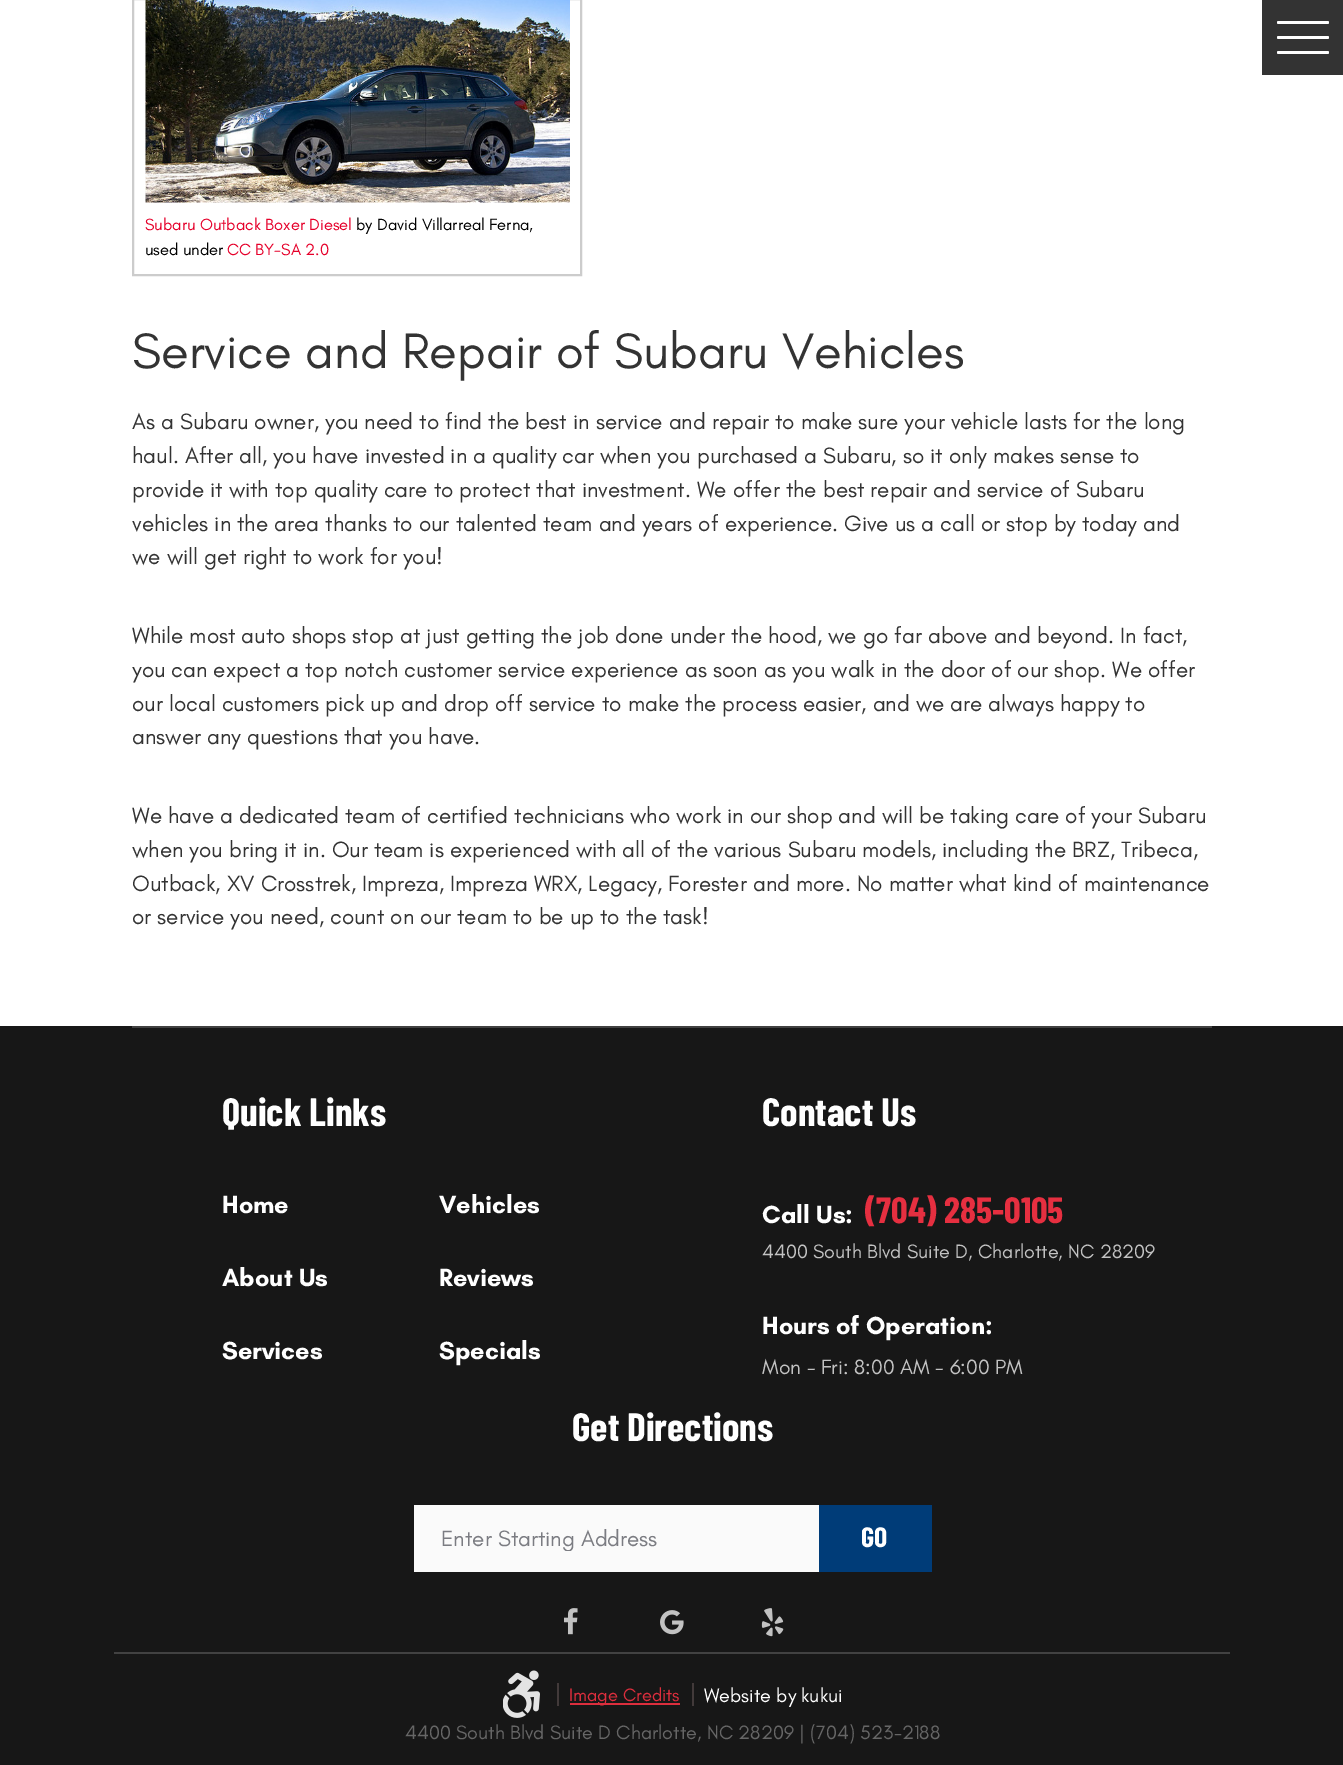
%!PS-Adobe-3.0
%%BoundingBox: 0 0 1343 1765
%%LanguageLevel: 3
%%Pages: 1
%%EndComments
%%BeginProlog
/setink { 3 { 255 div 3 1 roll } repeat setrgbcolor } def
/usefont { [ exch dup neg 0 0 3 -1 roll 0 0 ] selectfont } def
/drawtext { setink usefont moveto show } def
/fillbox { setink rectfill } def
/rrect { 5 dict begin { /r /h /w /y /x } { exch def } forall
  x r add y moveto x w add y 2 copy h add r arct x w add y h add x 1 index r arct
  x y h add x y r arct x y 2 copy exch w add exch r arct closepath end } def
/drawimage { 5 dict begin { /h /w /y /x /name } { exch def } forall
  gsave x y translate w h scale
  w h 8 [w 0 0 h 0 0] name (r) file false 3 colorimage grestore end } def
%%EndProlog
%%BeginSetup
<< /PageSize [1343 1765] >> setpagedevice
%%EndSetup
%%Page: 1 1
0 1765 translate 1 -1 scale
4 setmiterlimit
0 0 1343 1765 255 255 255 fillbox
1262 0 81 75 51 51 51 fillbox
255 255 255 setink
1277 36 52 3 1.5 rrect fill
1277 21 52 3 1.5 rrect fill
1277 51 52 3 1.5 rrect fill
204 204 204 setink
2 setlinewidth
133 -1 448 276 rectstroke
(assets/img1.rgb) 145 0 425 203 drawimage
(Subaru Outback Boxer Diesel) 145 230 /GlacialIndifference-Regular 16.5 230 0 42 drawtext
(by David Villarreal Ferna,) 356 230 /GlacialIndifference-Regular 16.5 0 0 0 drawtext
(used under) 145 255 /GlacialIndifference-Regular 16.5 0 0 0 drawtext
(CC BY-SA 2.0) 227 255 /GlacialIndifference-Regular 16.5 230 0 42 drawtext
(Service and Repair of Subaru Vehicles) 132 368 /GlacialIndifference-Regular 50.6 51 51 51 drawtext
(As a Subaru owner, you need to find the best in service and repair to make sure your vehicle lasts for the long) 132 429 /GlacialIndifference-Regular 22.5 51 51 51 drawtext
(haul. After all, you have invested in a quality car when you purchased a Subaru, so it only makes sense to) 132 463 /GlacialIndifference-Regular 22.5 51 51 51 drawtext
(provide it with top quality care to protect that investment. We offer the best repair and service of Subaru) 132 497 /GlacialIndifference-Regular 22.5 51 51 51 drawtext
(vehicles in the area thanks to our talented team and years of experience. Give us a call or stop by today and) 132 531 /GlacialIndifference-Regular 22.5 51 51 51 drawtext
(we will get right to work for you!) 132 564 /GlacialIndifference-Regular 22.5 51 51 51 drawtext
(While most auto shops stop at just getting the job done under the hood, we go far above and beyond. In fact,) 132 643 /GlacialIndifference-Regular 22.5 51 51 51 drawtext
(you can expect a top notch customer service experience as soon as you walk in the door of our shop. We offer) 132 677 /GlacialIndifference-Regular 22.5 51 51 51 drawtext
(our local customers pick up and drop off service to make the process easier, and we are always happy to) 132 711 /GlacialIndifference-Regular 22.5 51 51 51 drawtext
(answer any questions that you have.) 132 744 /GlacialIndifference-Regular 22.5 51 51 51 drawtext
(We have a dedicated team of certified technicians who work in our shop and will be taking care of your Subaru) 132 823 /GlacialIndifference-Regular 22.5 51 51 51 drawtext
(when you bring it in. Our team is experienced with all of the various Subaru models, including the BRZ, Tribeca,) 132 857 /GlacialIndifference-Regular 22.5 51 51 51 drawtext
(Outback, XV Crosstrek, Impreza, Impreza WRX, Legacy, Forester and more. No matter what kind of maintenance) 132 891 /GlacialIndifference-Regular 22.5 51 51 51 drawtext
(or service you need, count on our team to be up to the task!) 132 924 /GlacialIndifference-Regular 22.5 51 51 51 drawtext
0 1026 1343 739 23 23 23 fillbox
132 1026 1080 2 65 65 65 fillbox
(Quick Links) 222 1126 /BarlowCondensed-Bold 39.5 255 255 255 drawtext
(Home) 222 1213 /GlacialIndifference-Bold 25.25 255 255 255 drawtext
(Vehicles) 439 1213 /GlacialIndifference-Bold 25.25 255 255 255 drawtext
(About Us) 222 1286 /GlacialIndifference-Bold 25.25 255 255 255 drawtext
(Reviews) 439 1286 /GlacialIndifference-Bold 25.25 255 255 255 drawtext
(Services) 222 1359 /GlacialIndifference-Bold 25.25 255 255 255 drawtext
(Specials) 439 1359 /GlacialIndifference-Bold 25.25 255 255 255 drawtext
(Contact Us) 762 1126 /BarlowCondensed-Bold 39.5 255 255 255 drawtext
(Call Us:) 762 1223 /GlacialIndifference-Bold 25.25 255 255 255 drawtext
(\(704\) 285-0105) 865 1223 /BarlowCondensed-Bold 36.5 230 47 64 drawtext
(4400 South Blvd Suite D, Charlotte, NC 28209) 762 1258 /GlacialIndifference-Regular 19.7 194 194 194 drawtext
(Hours of Operation:) 762 1334 /GlacialIndifference-Bold 25.25 255 255 255 drawtext
(Mon - Fri: 8:00 AM - 6:00 PM) 762 1374 /GlacialIndifference-Regular 21.1 194 194 194 drawtext
(Get Directions) 572 1441 /BarlowCondensed-Bold 39.5 255 255 255 drawtext
414 1505 405 67 250 250 250 fillbox
gsave
441 1526 356 25 rectclip
(Enter Starting Address) 441 1546 /GlacialIndifference-Regular 22.5 123 124 130 drawtext
grestore
819 1505 113 67 0 60 120 fillbox
(GO) 861 1547 /BarlowCondensed-Bold 28 255 255 255 drawtext
(assets/img2.rgb) 564 1608 14 27 drawimage
(assets/img3.rgb) 660 1610 24 25 drawimage
(assets/img4.rgb) 761 1608 23 29 drawimage
114 1652 1116 2 66 66 66 fillbox
(assets/img5.rgb) 503 1670 37 48 drawimage
692 1683 2 23 66 58 58 fillbox
557 1683 2 23 66 58 58 fillbox
570 1703 110 2 221 46 61 fillbox
(Image Credits) 569 1701 /GlacialIndifference-Regular 18.25 221 46 61 drawtext
(Website by kukui) 704 1702 /GlacialIndifference-Regular 19.7 255 255 255 drawtext
(4400 South Blvd Suite D Charlotte, NC 28209 | \(704\) 523-2188) 405 1739 /GlacialIndifference-Regular 19.7 102 102 102 drawtext
showpage
%%EOF
